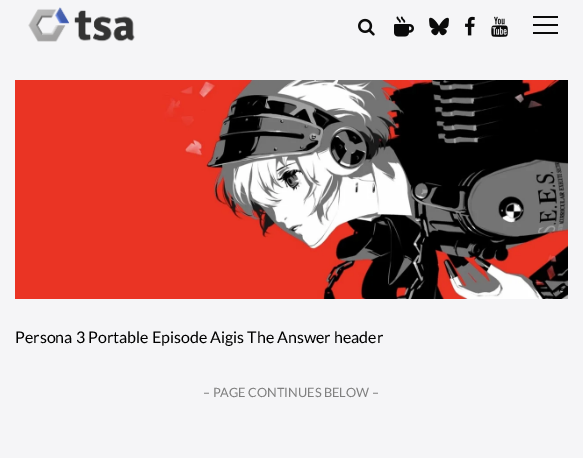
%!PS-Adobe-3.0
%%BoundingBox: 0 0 583 458
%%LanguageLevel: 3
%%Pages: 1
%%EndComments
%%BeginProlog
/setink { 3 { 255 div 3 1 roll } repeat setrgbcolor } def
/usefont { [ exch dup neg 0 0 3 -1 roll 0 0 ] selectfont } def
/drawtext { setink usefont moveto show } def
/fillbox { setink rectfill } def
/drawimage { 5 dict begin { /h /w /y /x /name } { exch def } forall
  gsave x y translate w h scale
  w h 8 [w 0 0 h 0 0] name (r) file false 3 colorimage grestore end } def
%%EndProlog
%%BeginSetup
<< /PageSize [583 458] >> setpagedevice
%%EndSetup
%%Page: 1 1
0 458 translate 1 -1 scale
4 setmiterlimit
0 0 583 458 245 245 247 fillbox
(assets/img1.rgb) 28 7 107 35 drawimage
(assets/img2.rgb) 358 18 17 18 drawimage
(assets/img3.rgb) 394 16 20 21 drawimage
(assets/img4.rgb) 429 17 20 19 drawimage
(assets/img5.rgb) 465 16 10 20 drawimage
(assets/img6.rgb) 491 16 17 21 drawimage
533 24 25 2 10 10 10 fillbox
533 16 25 2 10 10 10 fillbox
533 32 25 2 10 10 10 fillbox
(assets/img7.rgb) 15 80 553 219 drawimage
(Persona 3 Portable Episode Aigis The Answer header) 15 343 /Lato-Regular 16 0 0 0 drawtext
(– PAGE CONTINUES BELOW –) 203 397 /Lato-Regular 12.75 128 128 128 drawtext
showpage
%%EOF
